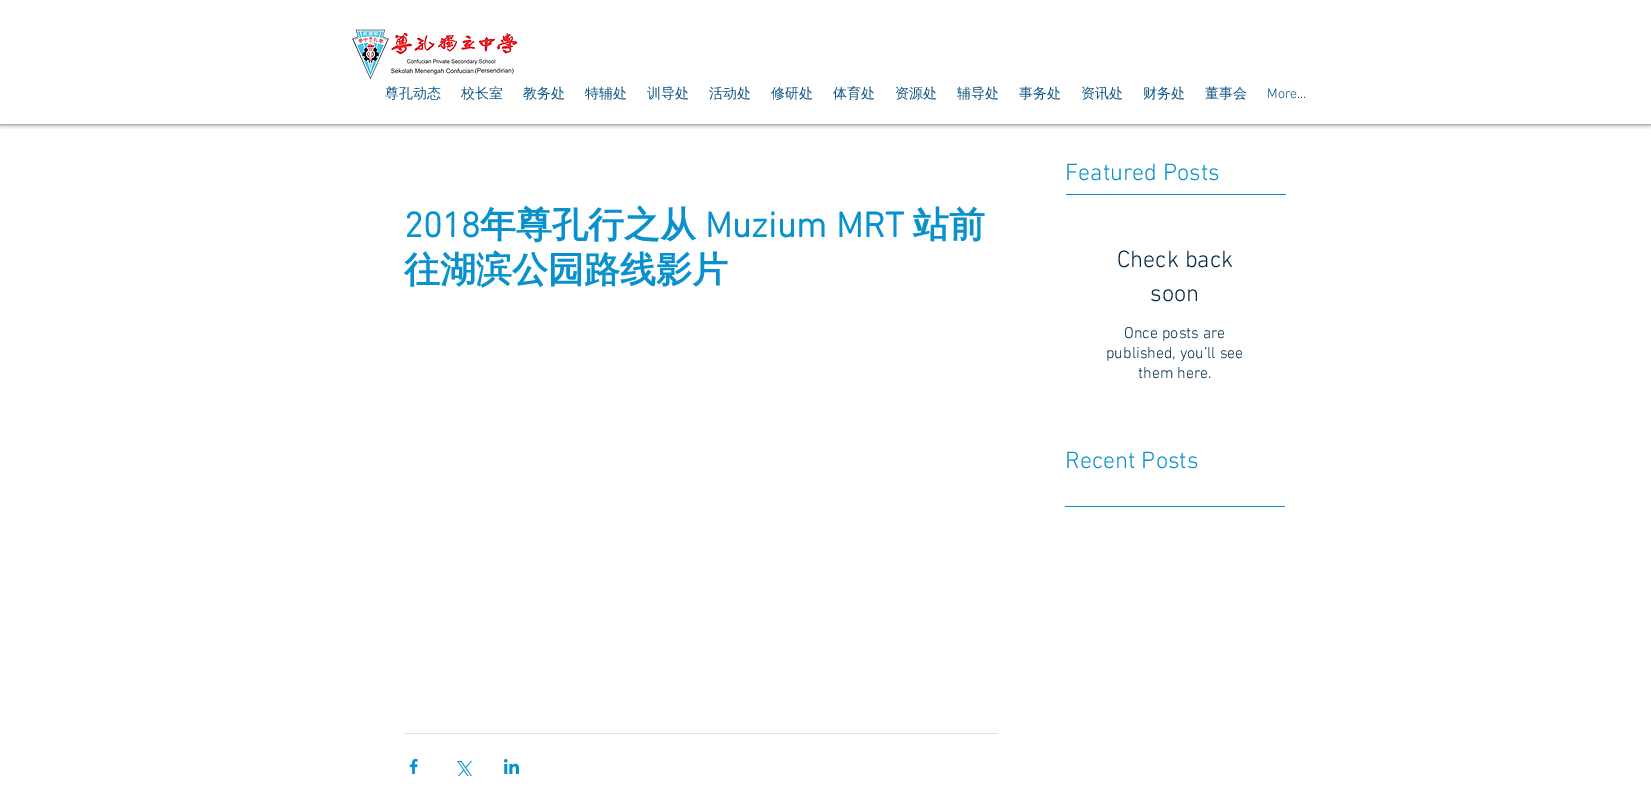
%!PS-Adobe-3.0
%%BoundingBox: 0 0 1651 794
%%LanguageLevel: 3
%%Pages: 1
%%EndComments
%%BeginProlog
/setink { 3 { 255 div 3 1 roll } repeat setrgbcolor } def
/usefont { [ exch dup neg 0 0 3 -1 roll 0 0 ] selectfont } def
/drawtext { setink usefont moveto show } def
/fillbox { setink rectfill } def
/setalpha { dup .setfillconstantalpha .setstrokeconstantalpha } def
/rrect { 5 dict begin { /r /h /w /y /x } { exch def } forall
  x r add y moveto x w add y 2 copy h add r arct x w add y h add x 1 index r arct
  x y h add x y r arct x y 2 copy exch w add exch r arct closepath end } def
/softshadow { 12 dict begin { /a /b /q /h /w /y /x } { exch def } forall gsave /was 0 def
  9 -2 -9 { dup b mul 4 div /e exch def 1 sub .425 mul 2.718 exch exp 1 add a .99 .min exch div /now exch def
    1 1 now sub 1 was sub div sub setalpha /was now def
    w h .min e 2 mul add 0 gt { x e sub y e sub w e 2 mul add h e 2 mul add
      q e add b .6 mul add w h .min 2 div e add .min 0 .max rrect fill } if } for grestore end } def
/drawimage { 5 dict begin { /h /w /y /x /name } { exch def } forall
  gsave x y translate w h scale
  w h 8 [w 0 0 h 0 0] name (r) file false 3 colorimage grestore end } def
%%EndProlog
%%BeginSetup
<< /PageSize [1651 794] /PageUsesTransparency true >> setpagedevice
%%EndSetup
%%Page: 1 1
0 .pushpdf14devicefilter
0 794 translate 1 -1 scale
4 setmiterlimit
0 0 1651 794 255 255 255 fillbox
gsave
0 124 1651 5 rectclip
0 0 0 setink
0 0 1651 124 0 2.5 0.7 softshadow
grestore
(assets/img1.rgb) 352 29 166 50 drawimage
(尊孔动态) 385 98 /WenQuanYiZenHei-Medium 14 11 83 134 drawtext
(校长室) 461 98 /WenQuanYiZenHei-Medium 14 11 83 134 drawtext
(教务处) 523 98 /WenQuanYiZenHei-Medium 14 11 83 134 drawtext
(特辅处) 585 98 /WenQuanYiZenHei-Medium 14 11 83 134 drawtext
(训导处) 647 98 /WenQuanYiZenHei-Medium 14 11 83 134 drawtext
(活动处) 709 98 /WenQuanYiZenHei-Medium 14 11 83 134 drawtext
(修研处) 771 98 /WenQuanYiZenHei-Medium 14 11 83 134 drawtext
(体育处) 833 98 /WenQuanYiZenHei-Medium 14 11 83 134 drawtext
(资源处) 895 98 /WenQuanYiZenHei-Medium 14 11 83 134 drawtext
(辅导处) 957 98 /WenQuanYiZenHei-Medium 14 11 83 134 drawtext
(事务处) 1019 98 /WenQuanYiZenHei-Medium 14 11 83 134 drawtext
(资讯处) 1081 98 /WenQuanYiZenHei-Medium 14 11 83 134 drawtext
(财务处) 1143 98 /WenQuanYiZenHei-Medium 14 11 83 134 drawtext
(董事会) 1205 98 /WenQuanYiZenHei-Medium 14 11 83 134 drawtext
(More...) 1267 98 /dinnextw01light-Light 14 11 83 134 drawtext
(Featured Posts) 1065 180 /dinnextw01light-Light 24 8 145 204 drawtext
1066 194 220 1 8 145 204 fillbox
(2018) 404 237 /dinnextw01light-Bold 36 8 145 204 drawtext
(年尊孔行之从) 480 237 /WenQuanYiZenHei-Bold 36 8 145 204 drawtext
(Muzium MRT) 705 237 /dinnextw01light-Bold 36 8 145 204 drawtext
(站前) 913 237 /WenQuanYiZenHei-Bold 36 8 145 204 drawtext
(往湖滨公园路线影片) 404 282 /WenQuanYiZenHei-Bold 36 8 145 204 drawtext
404 733 594 1 206 233 245 fillbox
(assets/img2.rgb) 409 759 9 15 drawimage
(assets/img3.rgb) 457 761 15 15 drawimage
(assets/img4.rgb) 504 759 15 15 drawimage
(Check back) 1117 267 /dinnextw01light-Light 24 5 41 67 drawtext
(soon) 1150 301 /dinnextw01light-Light 24 5 41 67 drawtext
(Once posts are) 1124 338 /dinnextw01light-Light 16 5 41 67 drawtext
(published, you’ll see) 1106 358 /dinnextw01light-Light 16 5 41 67 drawtext
(them here.) 1138 378 /dinnextw01light-Light 16 5 41 67 drawtext
(Recent Posts) 1065 468 /dinnextw01light-Light 24 8 145 204 drawtext
1065 506 220 1 8 145 204 fillbox
.poppdf14devicefilter showpage
%%EOF
